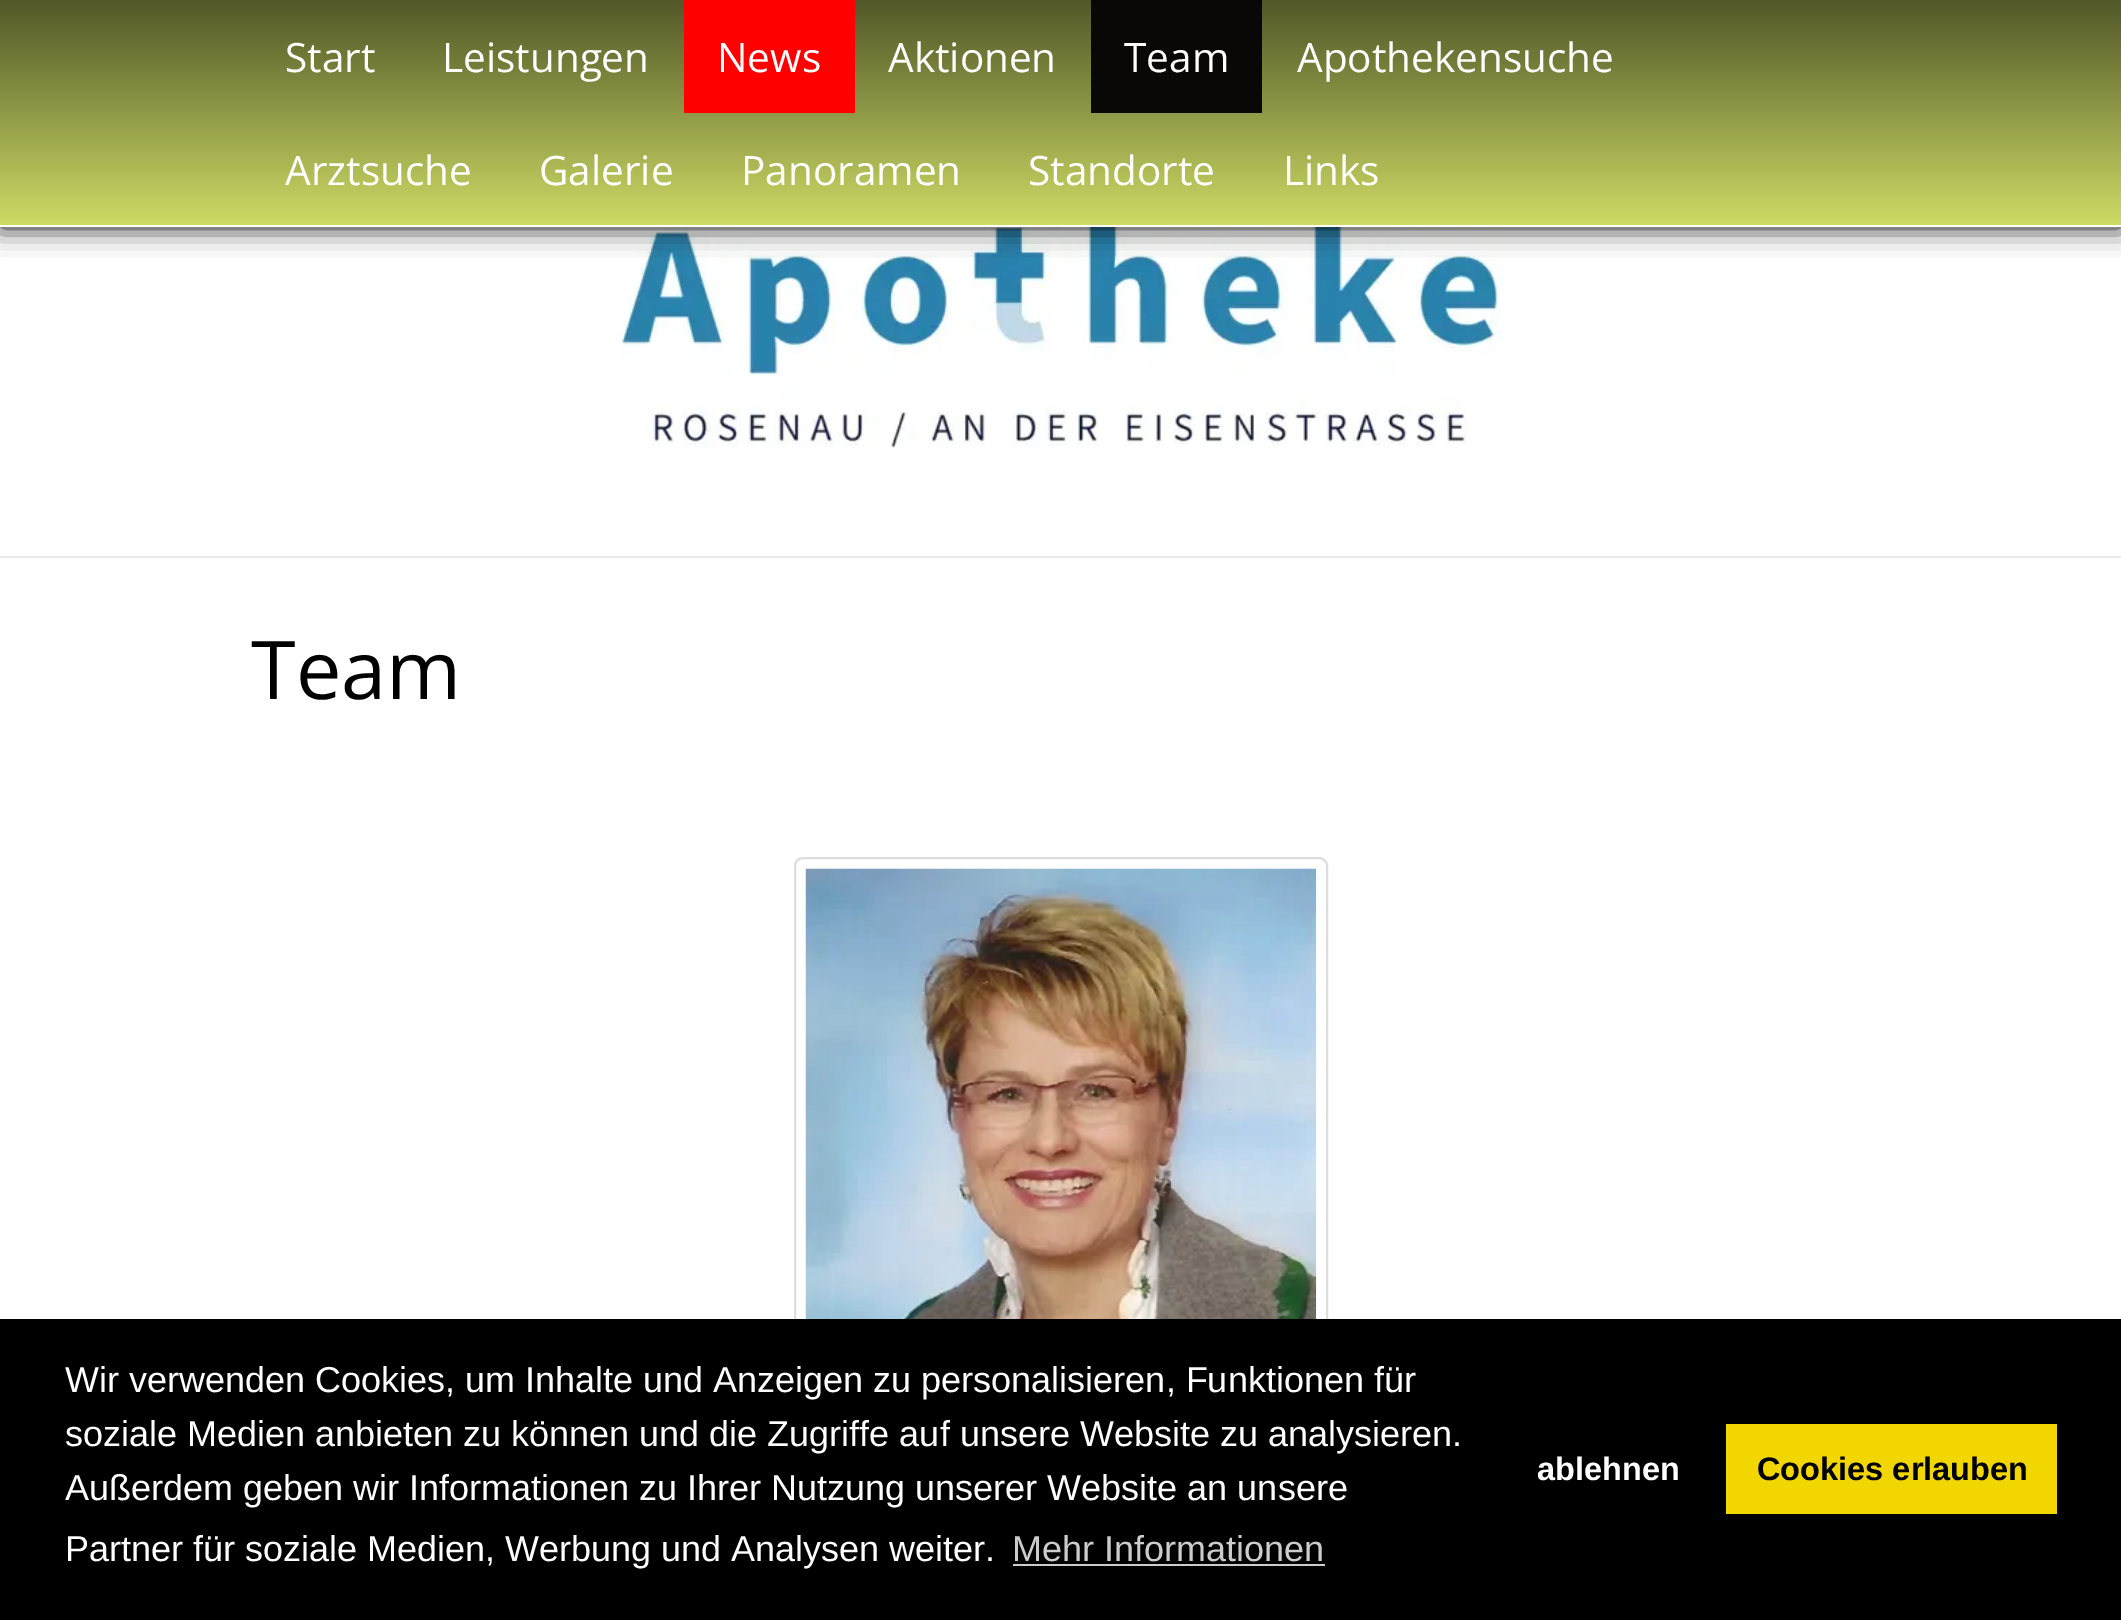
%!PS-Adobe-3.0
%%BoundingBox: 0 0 2121 1620
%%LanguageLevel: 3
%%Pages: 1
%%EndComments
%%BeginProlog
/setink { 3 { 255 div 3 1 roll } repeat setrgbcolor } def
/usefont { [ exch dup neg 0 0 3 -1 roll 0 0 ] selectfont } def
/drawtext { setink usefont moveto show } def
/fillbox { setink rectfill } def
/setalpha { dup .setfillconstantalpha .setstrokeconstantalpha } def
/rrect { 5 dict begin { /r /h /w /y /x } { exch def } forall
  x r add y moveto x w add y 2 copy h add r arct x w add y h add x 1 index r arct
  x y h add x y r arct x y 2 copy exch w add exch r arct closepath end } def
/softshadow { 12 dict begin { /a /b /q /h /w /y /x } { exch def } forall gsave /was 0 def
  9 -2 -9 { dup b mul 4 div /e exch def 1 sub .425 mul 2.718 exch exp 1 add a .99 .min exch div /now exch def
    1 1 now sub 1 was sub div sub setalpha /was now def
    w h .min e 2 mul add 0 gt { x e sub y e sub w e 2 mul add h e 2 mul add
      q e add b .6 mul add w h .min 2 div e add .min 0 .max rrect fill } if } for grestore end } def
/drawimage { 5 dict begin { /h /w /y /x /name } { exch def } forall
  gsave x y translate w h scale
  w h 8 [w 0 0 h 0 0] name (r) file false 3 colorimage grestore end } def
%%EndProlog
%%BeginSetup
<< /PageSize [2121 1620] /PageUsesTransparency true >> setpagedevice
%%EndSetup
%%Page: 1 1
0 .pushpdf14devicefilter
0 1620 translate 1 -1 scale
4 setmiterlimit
0 0 2121 1620 255 255 255 fillbox
(assets/img1.rgb) 620 227 884 221 drawimage
0 0 0 setink
0 0 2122 227 0 13.5 1 softshadow
gsave 0 0 moveto 2121 0 lineto 2121 225 lineto 0 225 lineto closepath clip newpath
<< /ShadingType 2 /ColorSpace /DeviceRGB /Coords [1061 0 1061 225] /Extend [true true] /Function << /FunctionType 2 /Domain [0 1] /C0 [0.322 0.341 0.157] /C1 [0.808 0.859 0.396] /N 1 >> >> shfill grestore
0 225 2121 2 255 255 255 fillbox
(Start) 285 72 /OpenSans-Regular 40.5 255 255 255 drawtext
(Leistungen) 442 72 /OpenSans-Regular 40.5 255 255 255 drawtext
684 0 171 113 255 0 0 fillbox
(News) 717 72 /OpenSans-Regular 40.5 255 255 255 drawtext
(Aktionen) 888 72 /OpenSans-Regular 40.5 255 255 255 drawtext
1091 0 171 113 9 8 6 fillbox
(Team) 1124 72 /OpenSans-Regular 40.5 255 255 255 drawtext
(Apothekensuche) 1297 72 /OpenSans-Regular 40.5 255 255 255 drawtext
(Arztsuche) 285 185 /OpenSans-Regular 40.5 255 255 255 drawtext
(Galerie) 539 185 /OpenSans-Regular 40.5 255 255 255 drawtext
(Panoramen) 741 185 /OpenSans-Regular 40.5 255 255 255 drawtext
(Standorte) 1028 185 /OpenSans-Regular 40.5 255 255 255 drawtext
(Links) 1283 185 /OpenSans-Regular 40.5 255 255 255 drawtext
0 556 2121 2 235 235 235 fillbox
(Team) 251 699 /OpenSans-Regular 81 0 0 0 drawtext
221 221 221 setink
2 setlinewidth
795 858 532 673 8 rrect stroke
(assets/img2.rgb) 805 868 512 451 drawimage
0 1319 2121 301 0 0 0 fillbox
(Wir verwenden Cookies, um Inhalte und Anzeigen zu personalisieren, Funktionen für) 65 1392 /LiberationSans-Regular 36 255 255 255 drawtext
(soziale Medien anbieten zu können und die Zugriffe auf unsere Website zu analysieren.) 65 1446 /LiberationSans-Regular 36 255 255 255 drawtext
(Außerdem geben wir Informationen zu Ihrer Nutzung unserer Website an unsere) 65 1500 /LiberationSans-Regular 36 255 255 255 drawtext
(Partner für soziale Medien, Werbung und Analysen weiter.) 65 1561 /LiberationSans-Regular 36 255 255 255 drawtext
(Mehr Informationen) 1012 1561 /LiberationSans-Regular 36 204 204 204 drawtext
1013 1564 312 2 204 204 204 fillbox
(ablehnen) 1537 1480 /LiberationSans-Bold 32.5 255 255 255 drawtext
1726 1424 331 90 241 214 0 fillbox
(Cookies erlauben) 1757 1480 /LiberationSans-Bold 32.5 0 0 0 drawtext
.poppdf14devicefilter showpage
%%EOF
